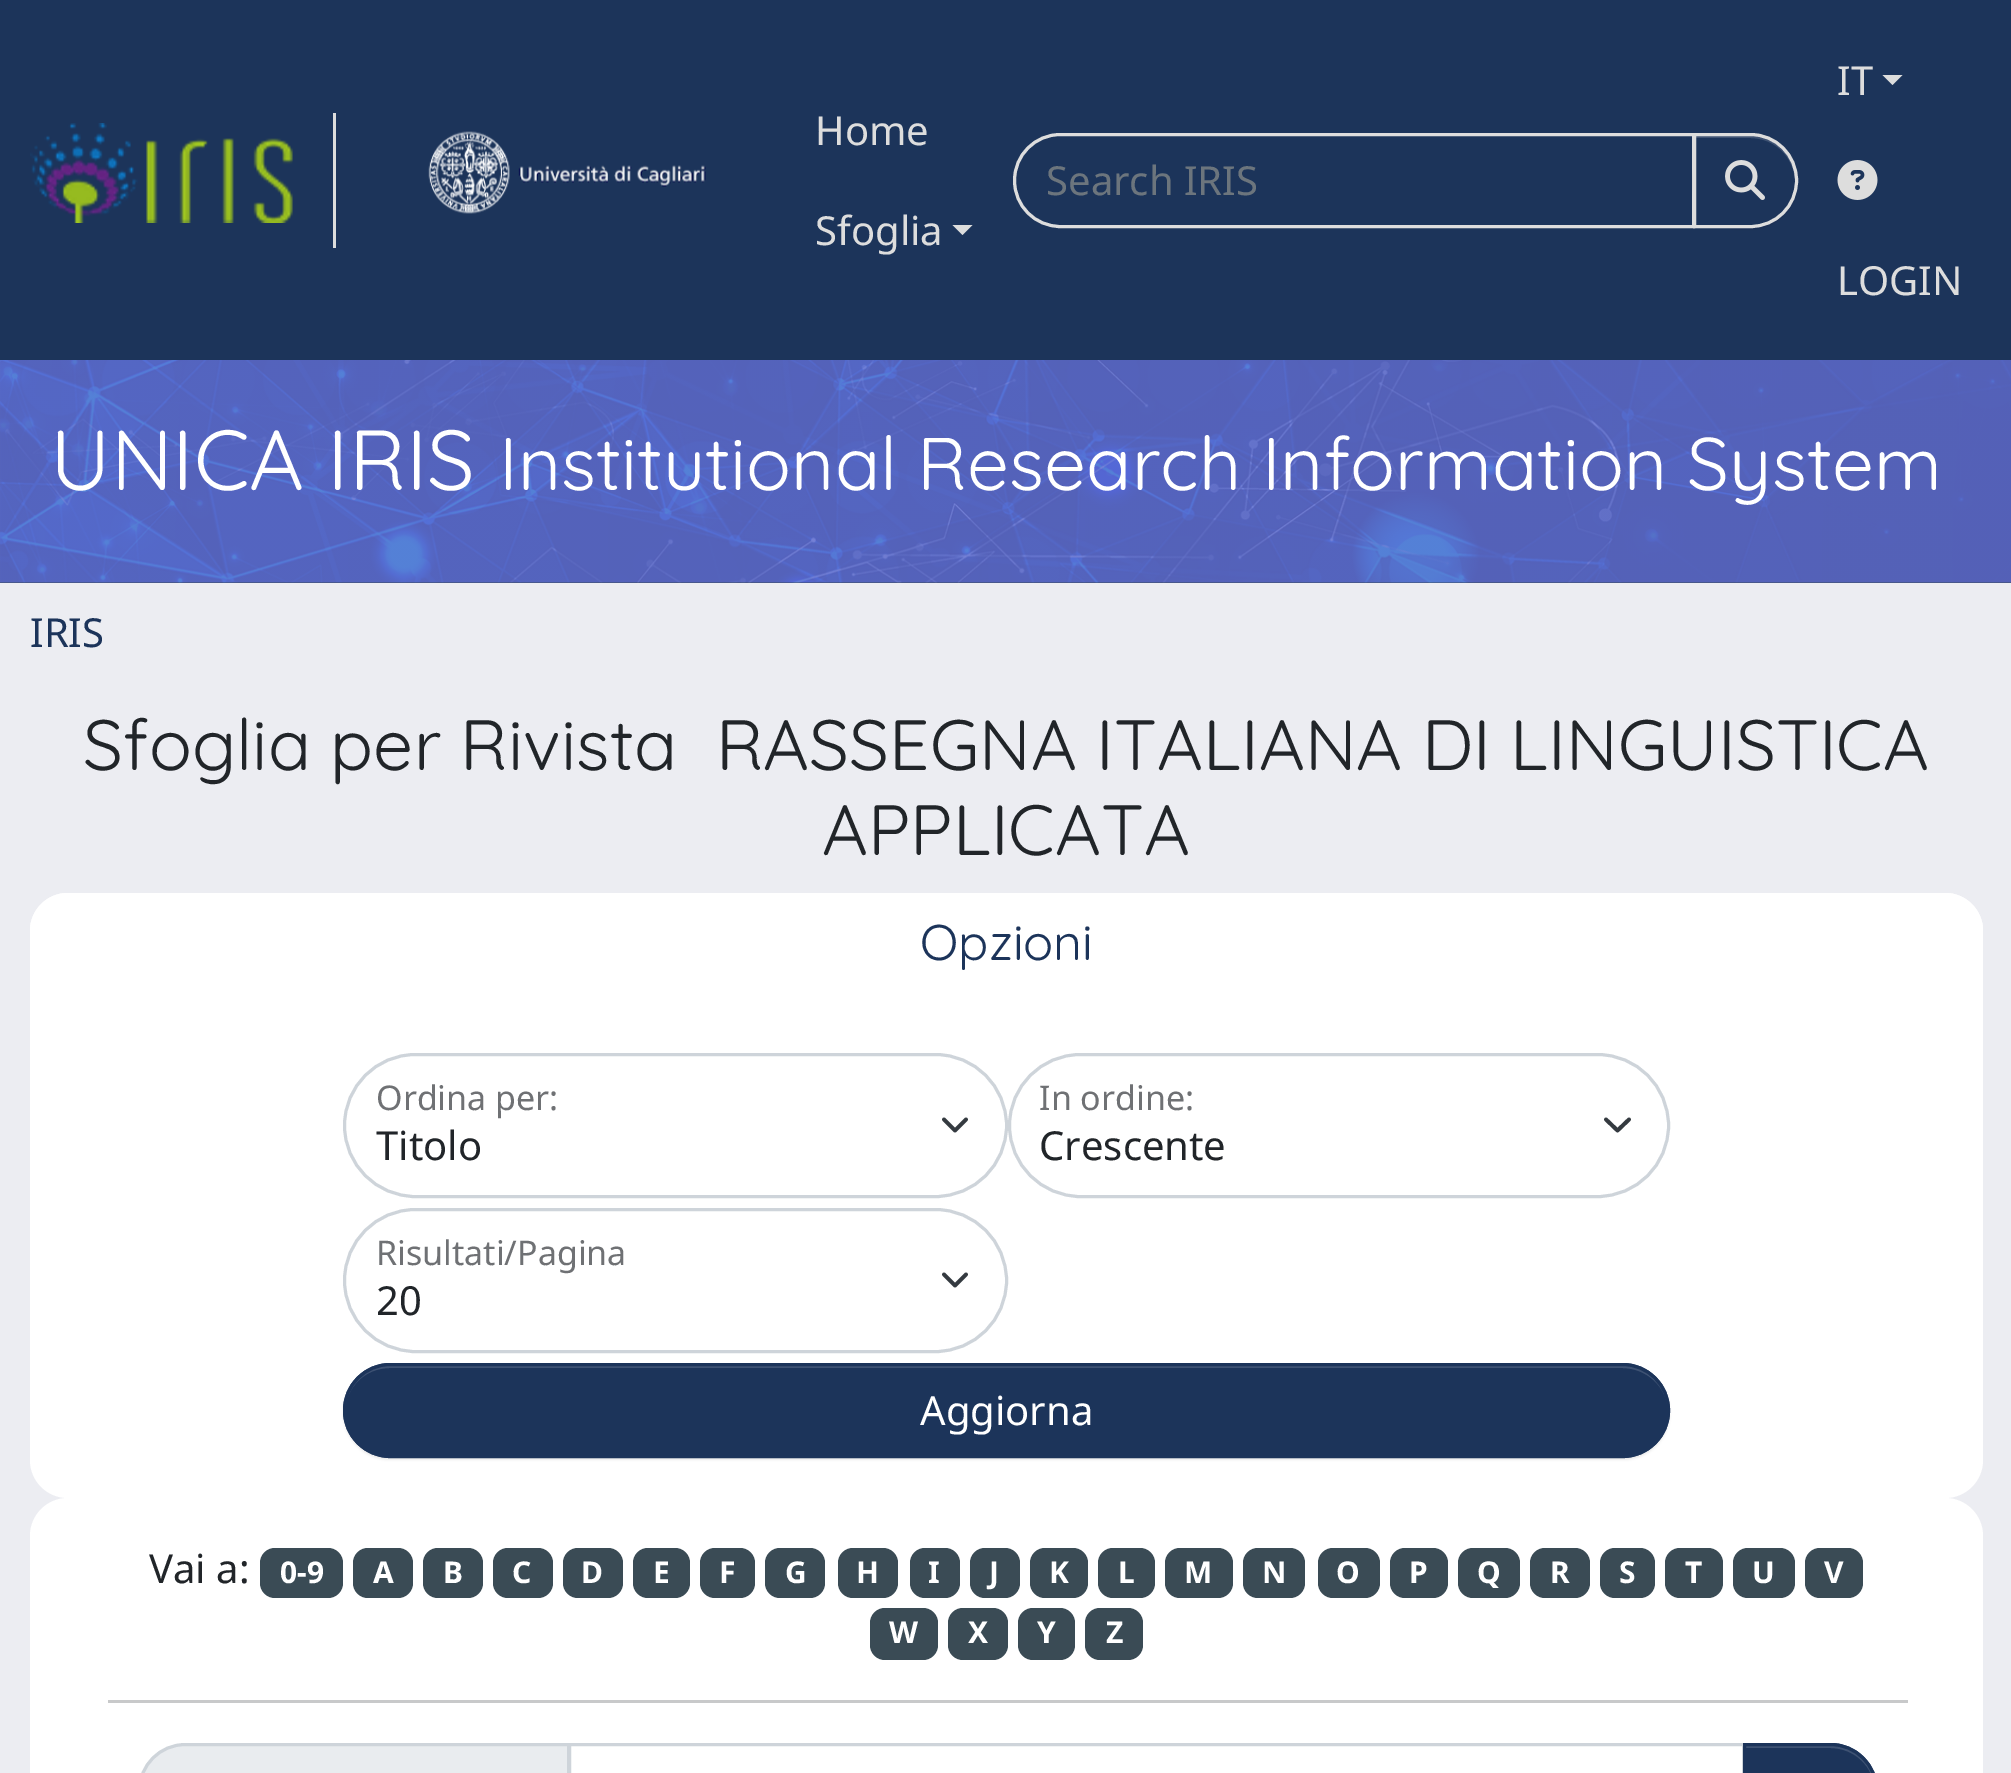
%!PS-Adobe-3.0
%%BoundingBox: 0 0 2011 1773
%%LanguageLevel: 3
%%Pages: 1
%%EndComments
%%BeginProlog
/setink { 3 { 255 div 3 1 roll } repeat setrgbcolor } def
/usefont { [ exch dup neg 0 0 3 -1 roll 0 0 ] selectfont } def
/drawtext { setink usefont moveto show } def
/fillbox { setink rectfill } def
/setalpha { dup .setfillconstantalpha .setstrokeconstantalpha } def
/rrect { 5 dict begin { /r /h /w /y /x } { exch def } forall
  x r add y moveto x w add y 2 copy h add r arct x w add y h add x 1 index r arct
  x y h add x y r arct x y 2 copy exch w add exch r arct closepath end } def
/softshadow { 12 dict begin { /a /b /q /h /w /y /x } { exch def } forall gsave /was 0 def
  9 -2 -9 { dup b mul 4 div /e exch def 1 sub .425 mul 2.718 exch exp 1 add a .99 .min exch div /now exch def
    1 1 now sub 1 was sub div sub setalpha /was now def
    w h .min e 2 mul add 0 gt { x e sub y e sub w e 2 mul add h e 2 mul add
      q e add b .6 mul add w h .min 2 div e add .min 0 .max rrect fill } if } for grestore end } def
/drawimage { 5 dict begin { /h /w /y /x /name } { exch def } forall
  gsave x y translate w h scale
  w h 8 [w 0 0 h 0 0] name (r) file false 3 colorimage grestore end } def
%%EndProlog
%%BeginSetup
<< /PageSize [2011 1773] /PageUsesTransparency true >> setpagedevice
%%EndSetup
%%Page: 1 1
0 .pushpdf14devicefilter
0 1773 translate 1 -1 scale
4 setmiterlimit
0 0 2011 1773 236 237 242 fillbox
0 0 2011 360 28 52 90 fillbox
333 113 3 135 221 221 221 fillbox
(assets/img1.rgb) 30 123 263 100 drawimage
(assets/img2.rgb) 428 131 278 83 drawimage
(Home) 815 145 /NotoSans-Regular 40 221 221 221 drawtext
(Sfoglia) 815 245 /NotoSans-Regular 40 221 221 221 drawtext
952.5 225 moveto 972.5 225 lineto 962.5 235 lineto closepath fill
3 setlinewidth
1060.5 134.5 moveto 1693.5 134.5 lineto 1693.5 226.5 lineto 1060.5 226.5 lineto 1035 226.5 1014.5 206 1014.5 180.5 curveto 1014.5 155 1035 134.5 1060.5 134.5 curveto closepath stroke
(Search IRIS) 1046 195 /NotoSans-Regular 40 108 117 125 drawtext
0 0 0 setink
1693 135 105 95 47.5 1 0.07 softshadow
28 52 90 setink
1693 133 moveto 1750.5 133 lineto 1776.5 133 1798 154.5 1798 180.5 curveto 1798 206.5 1776.5 228 1750.5 228 curveto 1693 228 lineto closepath fill
62 82 115 setink
1695 138 moveto 1750 138 lineto 1775 138 1794 157 1795 181 curveto 1795 180 lineto 1795 155 1775 135 1750 135 curveto 1695 135 lineto closepath fill
221 221 221 setink
1694.5 134.5 moveto 1750.5 134.5 lineto 1776 134.5 1796.5 155 1796.5 180.5 curveto 1796.5 206 1776 226.5 1750.5 226.5 curveto 1694.5 226.5 lineto closepath stroke
(assets/img3.rgb) 1725 160 40 40 drawimage
(IT) 1837 95 /NotoSans-Regular 40 221 221 221 drawtext
1882.5 75 moveto 1902.5 75 lineto 1892.5 85 lineto closepath fill
(assets/img4.rgb) 1837 160 41 40 drawimage
(LOGIN) 1837 295 /NotoSans-Regular 40 221 221 221 drawtext
0 360 2011 223 58 75 85 fillbox
(assets/img5.rgb) 0 360 2011 223 drawimage
(UNICA IRIS) 50 490 /Quicksand-Regular 85 255 255 255 drawtext
(Institutional Research Information System) 499 490 /Quicksand-Regular 74.5 255 255 255 drawtext
(IRIS) 30 647 /NotoSans-Regular 40 28 52 90 drawtext
(Sfoglia per Rivista  RASSEGNA ITALIANA DI LINGUISTICA) 83 770 /Quicksand-Regular 71.1 33 37 41 drawtext
(APPLICATA) 822 855 /Quicksand-Regular 71.1 33 37 41 drawtext
255 255 255 setink
30 893 1953 605 38 rrect fill
68 893 moveto 1945 893 lineto 1966 893 1983 910 1983 931 curveto 1983 1013 lineto 30 1013 lineto 30 931 lineto 30 910 47 893 68 893 curveto closepath fill
(Opzioni) 920 960 /Quicksand-Regular 50 28 52 90 drawtext
52 58 64 setink
3.8 setlinewidth
1 setlinecap
1 setlinejoin
944 1119.5 moveto 955 1130.5 lineto 966 1119.5 lineto stroke
206 212 218 setink
3 setlinewidth
0 setlinecap
0 setlinejoin
344.5 1054.5 662 142 71 rrect stroke
(Ordina per:) 376 1110 /NotoSans-Regular 34 111 113 116 drawtext
(Titolo) 376 1160 /NotoSans-Regular 40 33 37 41 drawtext
52 58 64 setink
3.8 setlinewidth
1 setlinecap
1 setlinejoin
1606 1119.5 moveto 1617.5 1130.5 lineto 1629 1119.5 lineto stroke
206 212 218 setink
3 setlinewidth
0 setlinecap
0 setlinejoin
1009.5 1054.5 659 142 71 rrect stroke
(In ordine:) 1039 1110 /NotoSans-Regular 34 111 113 116 drawtext
(Crescente) 1039 1160 /NotoSans-Regular 40 33 37 41 drawtext
52 58 64 setink
3.8 setlinewidth
1 setlinecap
1 setlinejoin
944 1274.5 moveto 955 1285.5 lineto 966 1274.5 lineto stroke
206 212 218 setink
3 setlinewidth
0 setlinecap
0 setlinejoin
344.5 1209.5 662 142 71 rrect stroke
(Risultati/Pagina) 376 1265 /NotoSans-Regular 34 111 113 116 drawtext
(20) 376 1315 /NotoSans-Regular 40 33 37 41 drawtext
0 0 0 setink
343 1365 1327 95 47.5 1 0.07 softshadow
28 52 90 setink
343 1363 1327 95 47.5 rrect fill
62 82 115 setink
390 1368 moveto 1622 1368 lineto 1647 1368 1667 1387 1668 1411 curveto 1668 1410 lineto 1668 1385 1648 1365 1623 1365 curveto 390 1365 lineto 365 1365 345 1385 345 1410 curveto 345 1411 lineto 346 1387 365 1368 390 1368 curveto closepath fill
28 52 90 setink
344.5 1364.5 1324 92 46 rrect stroke
(Aggiorna) 920 1425 /NotoSans-Regular 40 255 255 255 drawtext
30 1498 1953 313 38 rrect fill
(Vai a:) 149 1583 /NotoSans-Regular 40 33 37 41 drawtext
58 75 85 setink
260 1548 83 50 15 rrect fill
(0-9) 280 1583 /NotoSans-Bold 30 255 255 255 drawtext
58 75 85 setink
353 1548 60 50 15 rrect fill
(A) 373 1583 /NotoSans-Bold 30 255 255 255 drawtext
58 75 85 setink
423 1548 60 50 15 rrect fill
(B) 443 1583 /NotoSans-Bold 30 255 255 255 drawtext
58 75 85 setink
493 1548 60 50 15 rrect fill
(C) 512 1583 /NotoSans-Bold 30 255 255 255 drawtext
58 75 85 setink
563 1548 60 50 15 rrect fill
(D) 581 1583 /NotoSans-Bold 30 255 255 255 drawtext
58 75 85 setink
633 1548 57 50 15 rrect fill
(E) 653 1583 /NotoSans-Bold 30 255 255 255 drawtext
58 75 85 setink
700 1548 55 50 15 rrect fill
(F) 719 1583 /NotoSans-Bold 30 255 255 255 drawtext
58 75 85 setink
765 1548 60 50 15 rrect fill
(G) 785 1583 /NotoSans-Bold 30 255 255 255 drawtext
58 75 85 setink
838 1548 60 50 15 rrect fill
(H) 856 1583 /NotoSans-Bold 30 255 255 255 drawtext
58 75 85 setink
910 1548 50 50 15 rrect fill
(I) 928 1583 /NotoSans-Bold 30 255 255 255 drawtext
58 75 85 setink
970 1548 50 50 15 rrect fill
(J) 989 1583 /NotoSans-Bold 30 255 255 255 drawtext
58 75 85 setink
1030 1548 58 50 15 rrect fill
(K) 1049 1583 /NotoSans-Bold 30 255 255 255 drawtext
58 75 85 setink
1098 1548 57 50 15 rrect fill
(L) 1118 1583 /NotoSans-Bold 30 255 255 255 drawtext
58 75 85 setink
1165 1548 68 50 15 rrect fill
(M) 1184 1583 /NotoSans-Bold 30 255 255 255 drawtext
58 75 85 setink
1243 1548 62 50 15 rrect fill
(N) 1262 1583 /NotoSans-Bold 30 255 255 255 drawtext
58 75 85 setink
1318 1548 62 50 15 rrect fill
(O) 1336 1583 /NotoSans-Bold 30 255 255 255 drawtext
58 75 85 setink
1390 1548 58 50 15 rrect fill
(P) 1409 1583 /NotoSans-Bold 30 255 255 255 drawtext
58 75 85 setink
1458 1548 62 50 15 rrect fill
(Q) 1477 1583 /NotoSans-Bold 30 255 255 255 drawtext
58 75 85 setink
1530 1548 60 50 15 rrect fill
(R) 1550 1583 /NotoSans-Bold 30 255 255 255 drawtext
58 75 85 setink
1600 1548 55 50 15 rrect fill
(S) 1619 1583 /NotoSans-Bold 30 255 255 255 drawtext
58 75 85 setink
1665 1548 58 50 15 rrect fill
(T) 1685 1583 /NotoSans-Bold 30 255 255 255 drawtext
58 75 85 setink
1733 1548 62 50 15 rrect fill
(U) 1752 1583 /NotoSans-Bold 30 255 255 255 drawtext
58 75 85 setink
1805 1548 58 50 15 rrect fill
(V) 1824 1583 /NotoSans-Bold 30 255 255 255 drawtext
58 75 85 setink
870 1608 68 52 15 rrect fill
(W) 889 1643 /NotoSans-Bold 30 255 255 255 drawtext
58 75 85 setink
948 1608 60 52 15 rrect fill
(X) 968 1643 /NotoSans-Bold 30 255 255 255 drawtext
58 75 85 setink
1018 1608 57 52 15 rrect fill
(Y) 1037 1643 /NotoSans-Bold 30 255 255 255 drawtext
58 75 85 setink
1085 1608 58 52 15 rrect fill
(Z) 1106 1643 /NotoSans-Bold 30 255 255 255 drawtext
108 1700 1800 3 200 201 202 fillbox
233 236 239 setink
185.5 1744.5 moveto 568.5 1744.5 lineto 568.5 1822.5 lineto 185.5 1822.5 lineto 160 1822.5 139.5 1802 139.5 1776.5 curveto 139.5 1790.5 lineto 139.5 1765 160 1744.5 185.5 1744.5 curveto closepath gsave fill grestore
206 212 218 setink
stroke
569.5 1744.5 1174 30 rectstroke
28 52 90 setink
1743 1743 moveto 1830.5 1743 lineto 1856.5 1743 1878 1764.5 1878 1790.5 curveto 1878 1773.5 lineto 1878 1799.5 1856.5 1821 1830.5 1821 curveto 1743 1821 lineto closepath fill
62 82 115 setink
1745 1748 moveto 1830 1748 lineto 1855 1748 1874 1767 1875 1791 curveto 1875 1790 lineto 1875 1765 1855 1745 1830 1745 curveto 1745 1745 lineto closepath fill
28 52 90 setink
1744.5 1744.5 moveto 1830.5 1744.5 lineto 1856 1744.5 1876.5 1765 1876.5 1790.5 curveto 1876.5 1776.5 lineto 1876.5 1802 1856 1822.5 1830.5 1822.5 curveto 1744.5 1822.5 lineto closepath stroke
.poppdf14devicefilter showpage
%%EOF
